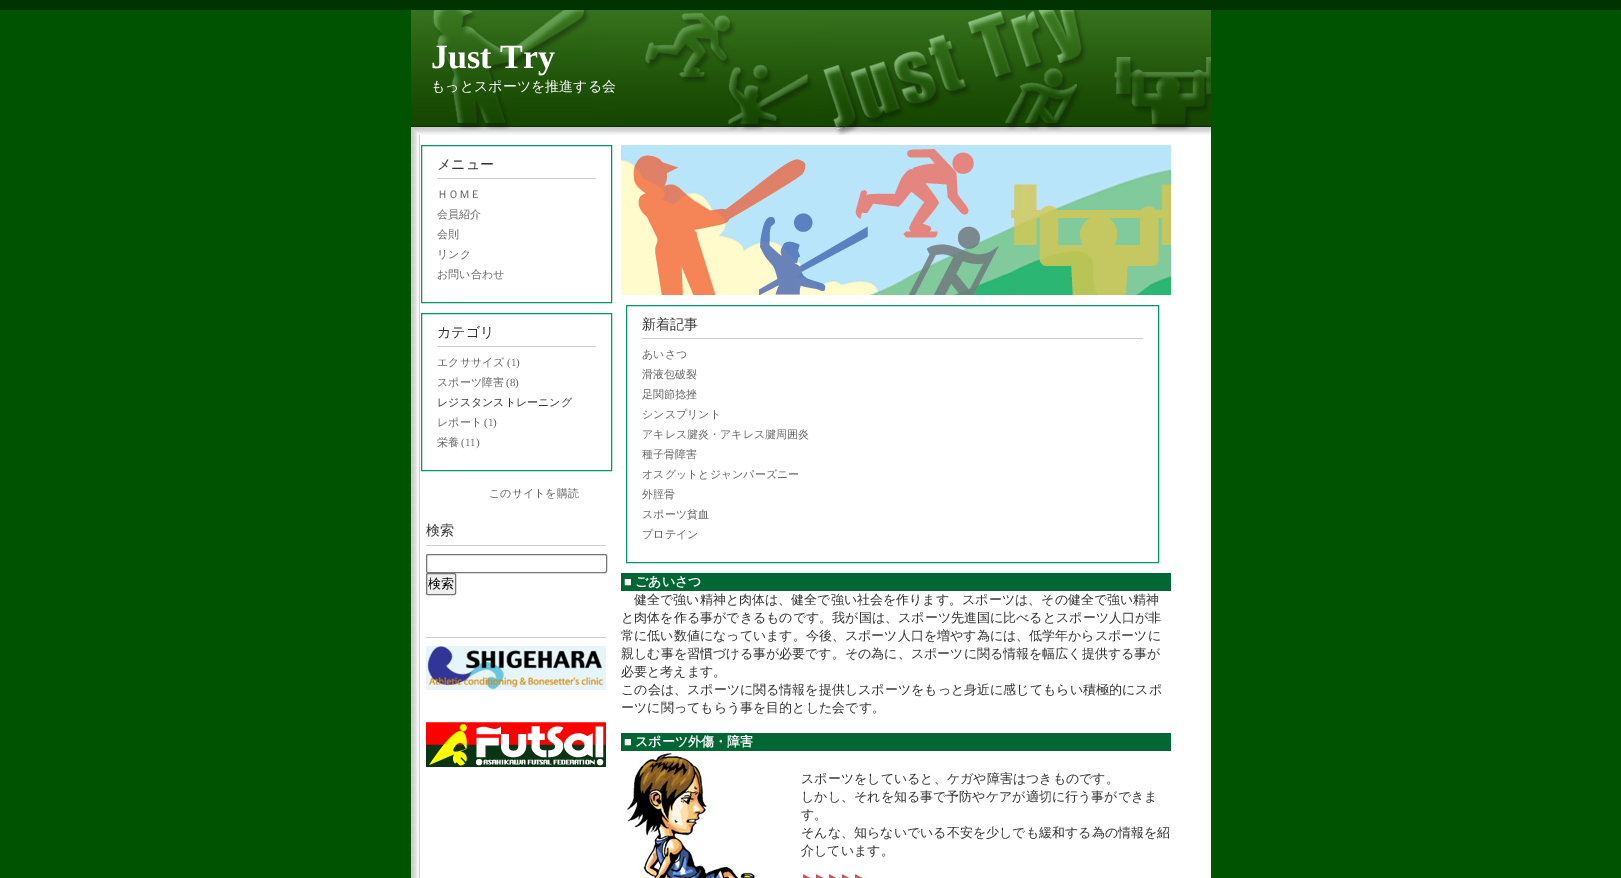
%!PS-Adobe-3.0
%%BoundingBox: 0 0 1621 878
%%LanguageLevel: 3
%%Pages: 1
%%EndComments
%%BeginProlog
/setink { 3 { 255 div 3 1 roll } repeat setrgbcolor } def
/usefont { [ exch dup neg 0 0 3 -1 roll 0 0 ] selectfont } def
/drawtext { setink usefont moveto show } def
/fillbox { setink rectfill } def
/rrect { 5 dict begin { /r /h /w /y /x } { exch def } forall
  x r add y moveto x w add y 2 copy h add r arct x w add y h add x 1 index r arct
  x y h add x y r arct x y 2 copy exch w add exch r arct closepath end } def
/drawimage { 5 dict begin { /h /w /y /x /name } { exch def } forall
  gsave x y translate w h scale
  w h 8 [w 0 0 h 0 0] name (r) file false 3 colorimage grestore end } def
%%EndProlog
%%BeginSetup
<< /PageSize [1621 878] >> setpagedevice
%%EndSetup
%%Page: 1 1
0 878 translate 1 -1 scale
4 setmiterlimit
0 0 1621 878 0 83 0 fillbox
(assets/img1.rgb) 411 10 800 125 drawimage
0 0 1621 10 0 51 0 fillbox
(Just Try) 431 68 /LiberationSerif-Bold 34 255 255 255 drawtext
(もっとスポーツを推進する会) 431 91 /WenQuanYiZenHei-Medium 14 255 255 255 drawtext
420 135 791 743 255 255 255 fillbox
(assets/img2.rgb) 411 135 9 743 drawimage
0 153 102 setink
421.5 145.5 190 157 rectstroke
437 178 159 1 204 204 204 fillbox
(メニュー) 437 169 /WenQuanYiZenHei-Medium 14 51 51 51 drawtext
(ＨＯＭＥ) 437 198 /WenQuanYiZenHei-Medium 11 102 102 102 drawtext
(会員紹介) 437 218 /WenQuanYiZenHei-Medium 11 102 102 102 drawtext
(会則) 437 238 /WenQuanYiZenHei-Medium 11 102 102 102 drawtext
(リンク) 437 258 /WenQuanYiZenHei-Medium 11 102 102 102 drawtext
(お問い合わせ) 437 278 /WenQuanYiZenHei-Medium 11 102 102 102 drawtext
0 153 102 setink
421.5 313.5 190 157 rectstroke
437 346 159 1 204 204 204 fillbox
(カテゴリ) 437 337 /WenQuanYiZenHei-Medium 14 51 51 51 drawtext
(エクササイズ) 437 366 /WenQuanYiZenHei-Medium 11 102 102 102 drawtext
(\(1\)) 507 366 /LiberationSerif-Regular 11 102 102 102 drawtext
(スポーツ障害) 437 386 /WenQuanYiZenHei-Medium 11 102 102 102 drawtext
(\(8\)) 506 386 /LiberationSerif-Regular 11 102 102 102 drawtext
(レジスタンストレーニング) 437 406 /WenQuanYiZenHei-Medium 11 51 51 51 drawtext
(レポート) 437 426 /WenQuanYiZenHei-Medium 11 102 102 102 drawtext
(\(1\)) 484 426 /LiberationSerif-Regular 11 102 102 102 drawtext
(栄養) 437 446 /WenQuanYiZenHei-Medium 11 102 102 102 drawtext
(\(11\)) 461 446 /LiberationSerif-Regular 11 102 102 102 drawtext
(このサイトを購読) 489 497 /WenQuanYiZenHei-Medium 11 102 102 102 drawtext
426 545 180 1 204 204 204 fillbox
(検索) 426 535 /WenQuanYiZenHei-Medium 14 51 51 51 drawtext
118 118 118 setink
426.5 554.5 180 18 1.5 rrect stroke
239 239 239 setink
426.5 573.5 29 21 1.5 rrect gsave fill grestore
118 118 118 setink
stroke
(検索) 428 588 /WenQuanYiZenHei-Medium 13 0 0 0 drawtext
426 637 180 1 204 204 204 fillbox
(assets/img3.rgb) 426 646 180 44 drawimage
(assets/img4.rgb) 426 722 180 45 drawimage
(assets/img5.rgb) 621 145 550 150 drawimage
0 153 102 setink
626.5 305.5 532 257 rectstroke
642 338 501 1 204 204 204 fillbox
(新着記事) 642 329 /WenQuanYiZenHei-Medium 14 51 51 51 drawtext
(あいさつ) 642 358 /WenQuanYiZenHei-Medium 11 102 102 102 drawtext
(滑液包破裂) 642 378 /WenQuanYiZenHei-Medium 11 102 102 102 drawtext
(足関節捻挫) 642 398 /WenQuanYiZenHei-Medium 11 102 102 102 drawtext
(シンスプリント) 642 418 /WenQuanYiZenHei-Medium 11 102 102 102 drawtext
(アキレス腱炎・アキレス腱周囲炎) 642 438 /WenQuanYiZenHei-Medium 11 102 102 102 drawtext
(種子骨障害) 642 458 /WenQuanYiZenHei-Medium 11 102 102 102 drawtext
(オスグットとジャンパーズニー) 642 478 /WenQuanYiZenHei-Medium 11 102 102 102 drawtext
(外脛骨) 642 498 /WenQuanYiZenHei-Medium 11 102 102 102 drawtext
(スポーツ貧血) 642 518 /WenQuanYiZenHei-Medium 11 102 102 102 drawtext
(プロテイン) 642 538 /WenQuanYiZenHei-Medium 11 102 102 102 drawtext
621 573 550 18 0 102 51 fillbox
(■) 624 586 /LiberationSerif-Bold 13 255 255 255 drawtext
(ごあいさつ) 635 586 /WenQuanYiZenHei-Bold 13 255 255 255 drawtext
(健全で強い精神と肉体は、健全で強い社会を作ります。スポーツは、その健全で強い精神) 634 604 /WenQuanYiZenHei-Medium 13 51 51 51 drawtext
(と肉体を作る事ができるものです。我が国は、スポーツ先進国に比べるとスポーツ人口が非) 621 622 /WenQuanYiZenHei-Medium 13 51 51 51 drawtext
(常に低い数値になっています。今後、スポーツ人口を増やす為には、低学年からスポーツに) 621 640 /WenQuanYiZenHei-Medium 13 51 51 51 drawtext
(親しむ事を習慣づける事が必要です。その為に、スポーツに関る情報を幅広く提供する事が) 621 658 /WenQuanYiZenHei-Medium 13 51 51 51 drawtext
(必要と考えます。) 621 676 /WenQuanYiZenHei-Medium 13 51 51 51 drawtext
(この会は、スポーツに関る情報を提供しスポーツをもっと身近に感じてもらい積極的にスポ) 621 694 /WenQuanYiZenHei-Medium 13 51 51 51 drawtext
(ーツに関ってもらう事を目的とした会です。) 621 712 /WenQuanYiZenHei-Medium 13 51 51 51 drawtext
621 733 550 18 0 102 51 fillbox
(■) 624 746 /LiberationSerif-Bold 13 255 255 255 drawtext
(スポーツ外傷・障害) 635 746 /WenQuanYiZenHei-Bold 13 255 255 255 drawtext
(assets/img6.rgb) 622 751 135 127 drawimage
(スポーツをしていると、ケガや障害はつきものです。) 801 783 /WenQuanYiZenHei-Medium 13 51 51 51 drawtext
(しかし、それを知る事で予防やケアが適切に行う事ができま) 801 801 /WenQuanYiZenHei-Medium 13 51 51 51 drawtext
(す。) 801 819 /WenQuanYiZenHei-Medium 13 51 51 51 drawtext
(そんな、知らないでいる不安を少しでも緩和する為の情報を紹) 801 837 /WenQuanYiZenHei-Medium 13 51 51 51 drawtext
(介しています。) 801 855 /WenQuanYiZenHei-Medium 13 51 51 51 drawtext
(assets/img7.rgb) 801 873 13 5 drawimage
(assets/img7.rgb) 814 873 13 5 drawimage
(assets/img7.rgb) 827 873 13 5 drawimage
(assets/img7.rgb) 840 873 13 5 drawimage
(assets/img7.rgb) 853 873 13 5 drawimage
showpage
%%EOF
